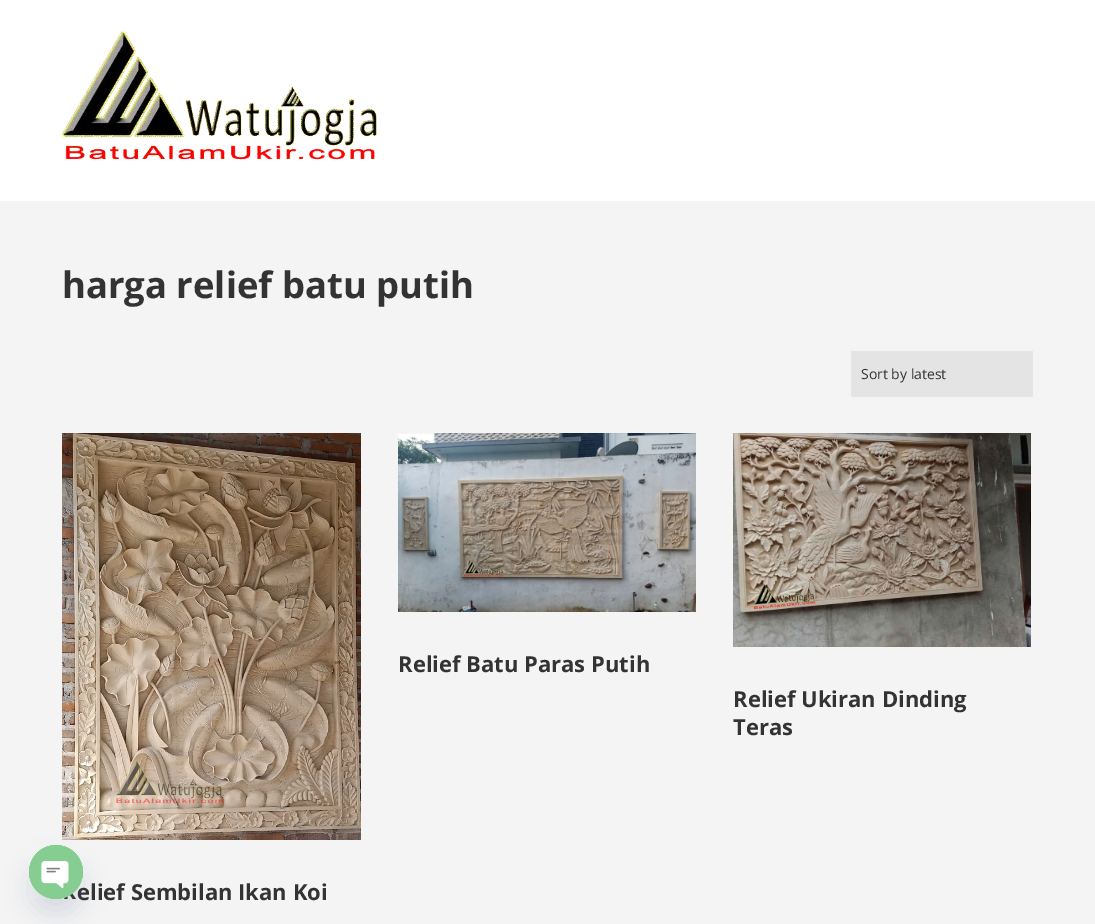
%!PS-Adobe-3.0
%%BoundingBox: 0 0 1095 924
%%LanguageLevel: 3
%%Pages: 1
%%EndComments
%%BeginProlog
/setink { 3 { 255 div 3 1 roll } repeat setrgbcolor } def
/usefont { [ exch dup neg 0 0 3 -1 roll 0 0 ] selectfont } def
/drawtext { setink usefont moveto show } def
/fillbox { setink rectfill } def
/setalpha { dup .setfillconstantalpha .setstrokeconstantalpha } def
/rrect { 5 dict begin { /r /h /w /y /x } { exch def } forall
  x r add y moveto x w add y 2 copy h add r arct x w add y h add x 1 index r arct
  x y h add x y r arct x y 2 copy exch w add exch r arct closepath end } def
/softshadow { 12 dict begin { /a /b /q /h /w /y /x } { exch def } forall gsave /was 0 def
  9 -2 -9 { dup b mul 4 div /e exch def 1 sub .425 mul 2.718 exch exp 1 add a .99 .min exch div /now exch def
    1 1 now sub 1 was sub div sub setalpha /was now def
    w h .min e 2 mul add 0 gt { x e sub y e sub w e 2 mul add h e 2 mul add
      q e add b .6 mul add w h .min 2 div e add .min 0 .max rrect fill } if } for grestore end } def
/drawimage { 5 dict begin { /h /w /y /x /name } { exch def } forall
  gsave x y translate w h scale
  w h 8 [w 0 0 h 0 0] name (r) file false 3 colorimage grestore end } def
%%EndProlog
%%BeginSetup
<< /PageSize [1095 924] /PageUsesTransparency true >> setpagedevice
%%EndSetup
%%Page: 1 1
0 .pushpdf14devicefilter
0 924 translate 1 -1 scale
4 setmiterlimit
0 0 1095 924 255 255 255 fillbox
0 201 1095 723 244 244 244 fillbox
(assets/img5.rgb) 62 433 299 407 drawimage
73 104 126 setink
29 861 54 54 27 12 0.16 softshadow
(elief Sembilan Ikan Koi) 77 900 /OpenSans-Bold 22 51 51 51 drawtext
(assets/img1.rgb) 29 845 54 54 drawimage
(assets/img2.rgb) 62 30 315 131 drawimage
(harga relief batu putih) 62 298 /OpenSans-Bold 36.4 51 51 51 drawtext
851 351 182 46 228 228 228 fillbox
(Sort by latest) 861 379 /OpenSans-Regular 14 51 51 51 drawtext
(assets/img3.rgb) 398 433 298 179 drawimage
(Relief Batu Paras Putih) 398 672 /OpenSans-Bold 22 51 51 51 drawtext
(assets/img4.rgb) 733 433 298 214 drawimage
(Relief Ukiran Dinding) 733 707 /OpenSans-Bold 22 51 51 51 drawtext
(Teras) 733 735 /OpenSans-Bold 22 51 51 51 drawtext
.poppdf14devicefilter showpage
%%EOF
